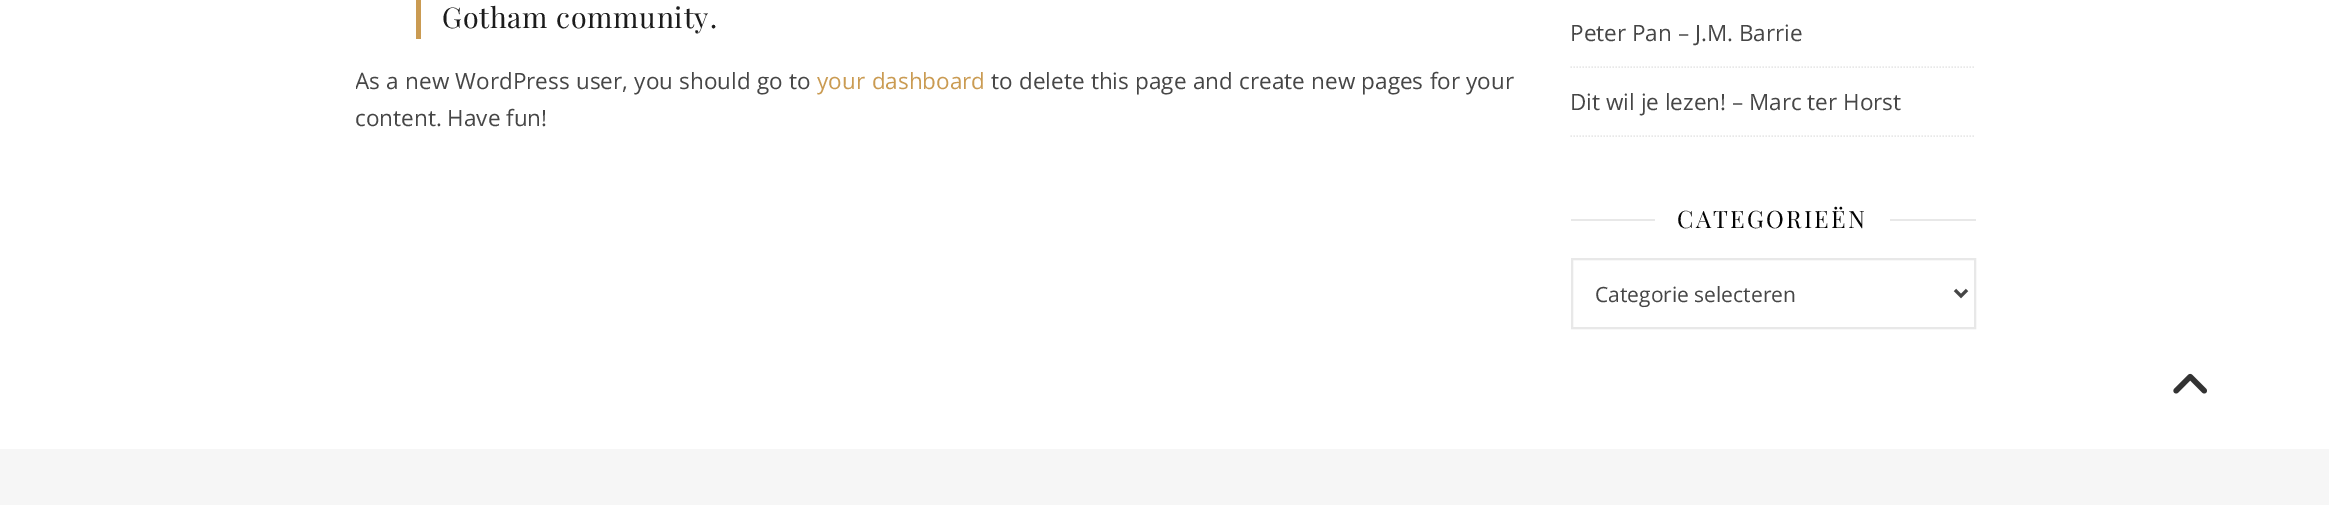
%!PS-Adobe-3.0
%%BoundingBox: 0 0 2329 505
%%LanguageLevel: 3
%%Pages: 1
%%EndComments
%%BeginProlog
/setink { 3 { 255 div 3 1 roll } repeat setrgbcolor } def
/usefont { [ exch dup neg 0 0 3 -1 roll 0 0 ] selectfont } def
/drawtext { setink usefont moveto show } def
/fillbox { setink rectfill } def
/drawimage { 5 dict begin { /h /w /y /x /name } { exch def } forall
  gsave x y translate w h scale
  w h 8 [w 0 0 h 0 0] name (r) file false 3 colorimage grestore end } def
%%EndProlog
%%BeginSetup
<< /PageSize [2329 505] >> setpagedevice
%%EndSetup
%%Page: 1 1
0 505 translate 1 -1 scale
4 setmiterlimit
0 0 2329 505 255 255 255 fillbox
416 0 5 39 202 155 82 fillbox
/PlayfairDisplay-Regular 28.5 usefont
28 28 28 setink
442 28 moveto 0.75 0 (Gotham community.) ashow
gsave
356 0 1159 158 rectclip
/OpenSans-Regular 22.5 usefont
70 70 70 setink
355 89 moveto 0.5 0 32 (As a new WordPress user, you should go to) widthshow
grestore
/OpenSans-Regular 22.5 usefont
202 155 82 setink
817 89 moveto 1 0 32 (your dashboard) widthshow
70 70 70 setink
991 89 moveto 0.5 0 32 (to delete this page and create new pages for your) widthshow
(content. Have fun!) 355 126 /OpenSans-Regular 22.5 70 70 70 drawtext
232 232 232 setink
1.5 setlinewidth
[1.5 1.5] 0 setdash
1570.5 67 moveto 1975.5 67 lineto stroke
(Peter Pan – J.M. Barrie) 1570 41 /OpenSans-Regular 22.5 70 70 70 drawtext
232 232 232 setink
1570.5 136 moveto 1975.5 136 lineto stroke
(Dit wil je lezen! – Marc ter Horst) 1570 110 /OpenSans-Regular 22.5 70 70 70 drawtext
1571 219 84 2 232 232 232 fillbox
/PlayfairDisplay-Regular 24 usefont
3 3 3 setink
1677 228 moveto 2.25 0 (CATEGORIEËN) ashow
1890 219 86 2 232 232 232 fillbox
2 setlinewidth
[] 0 setdash
1572 259 403 69 rectstroke
70 70 70 setink
3 setlinewidth
1955 290 moveto 1961 296 lineto 1967 290 lineto stroke
(Categorie selecteren) 1595 302 /OpenSans-Regular 21 70 70 70 drawtext
0 449 2329 56 246 246 246 fillbox
(assets/img1.rgb) 2173 373 34 21 drawimage
showpage
%%EOF
